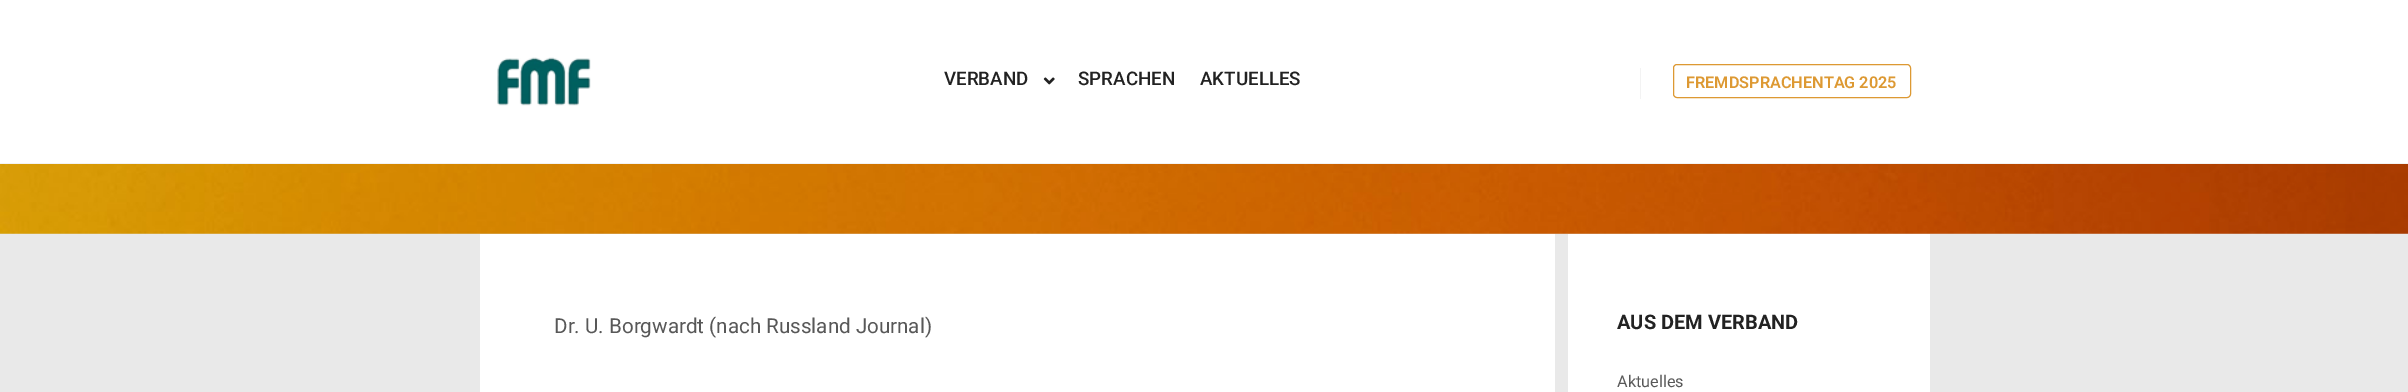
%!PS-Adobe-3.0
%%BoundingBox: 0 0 2408 392
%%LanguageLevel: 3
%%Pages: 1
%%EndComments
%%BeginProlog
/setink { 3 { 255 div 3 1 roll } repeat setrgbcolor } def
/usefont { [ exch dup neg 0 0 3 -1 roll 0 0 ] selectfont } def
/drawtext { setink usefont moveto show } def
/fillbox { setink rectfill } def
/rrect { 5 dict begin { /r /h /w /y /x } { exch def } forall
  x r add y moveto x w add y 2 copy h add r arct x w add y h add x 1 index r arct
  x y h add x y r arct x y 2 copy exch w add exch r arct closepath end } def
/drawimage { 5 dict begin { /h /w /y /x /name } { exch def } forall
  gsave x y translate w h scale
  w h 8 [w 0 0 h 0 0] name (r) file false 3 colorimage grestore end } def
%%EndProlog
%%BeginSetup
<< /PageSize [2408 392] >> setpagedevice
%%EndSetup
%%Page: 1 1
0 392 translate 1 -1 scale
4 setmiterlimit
0 0 2408 392 233 233 233 fillbox
0 0 2408 163 255 255 255 fillbox
0 163 2408 1 243 243 243 fillbox
(assets/img1.rgb) 497 57 94 49 drawimage
(VERBAND) 944 85 /Roboto-Medium 18.75 34 34 34 drawtext
(assets/img2.rgb) 1043 77 12 8 drawimage
(SPRACHEN) 1078 85 /Roboto-Medium 18.75 34 34 34 drawtext
(AKTUELLES) 1200 85 /Roboto-Medium 18.75 34 34 34 drawtext
1640 68 1 31 243 243 243 fillbox
221 153 51 setink
1673.5 64.5 237 33 3.5 rrect stroke
(FREMDSPRACHENTAG 2025) 1686 88 /Roboto-SemiBold 16.25 221 153 51 drawtext
(assets/img3.rgb) 0 164 2408 70 drawimage
480 234 1075 158 255 255 255 fillbox
(Dr. U. Borgwardt \(nach Russland Journal\)) 554 333 /Roboto-Regular 20.6 88 88 88 drawtext
1568 234 362 158 255 255 255 fillbox
(AUS DEM VERBAND) 1617 329 /Roboto-Bold 20 34 34 34 drawtext
(Aktuelles) 1617 387 /Roboto-Regular 16.25 88 88 88 drawtext
showpage
%%EOF
